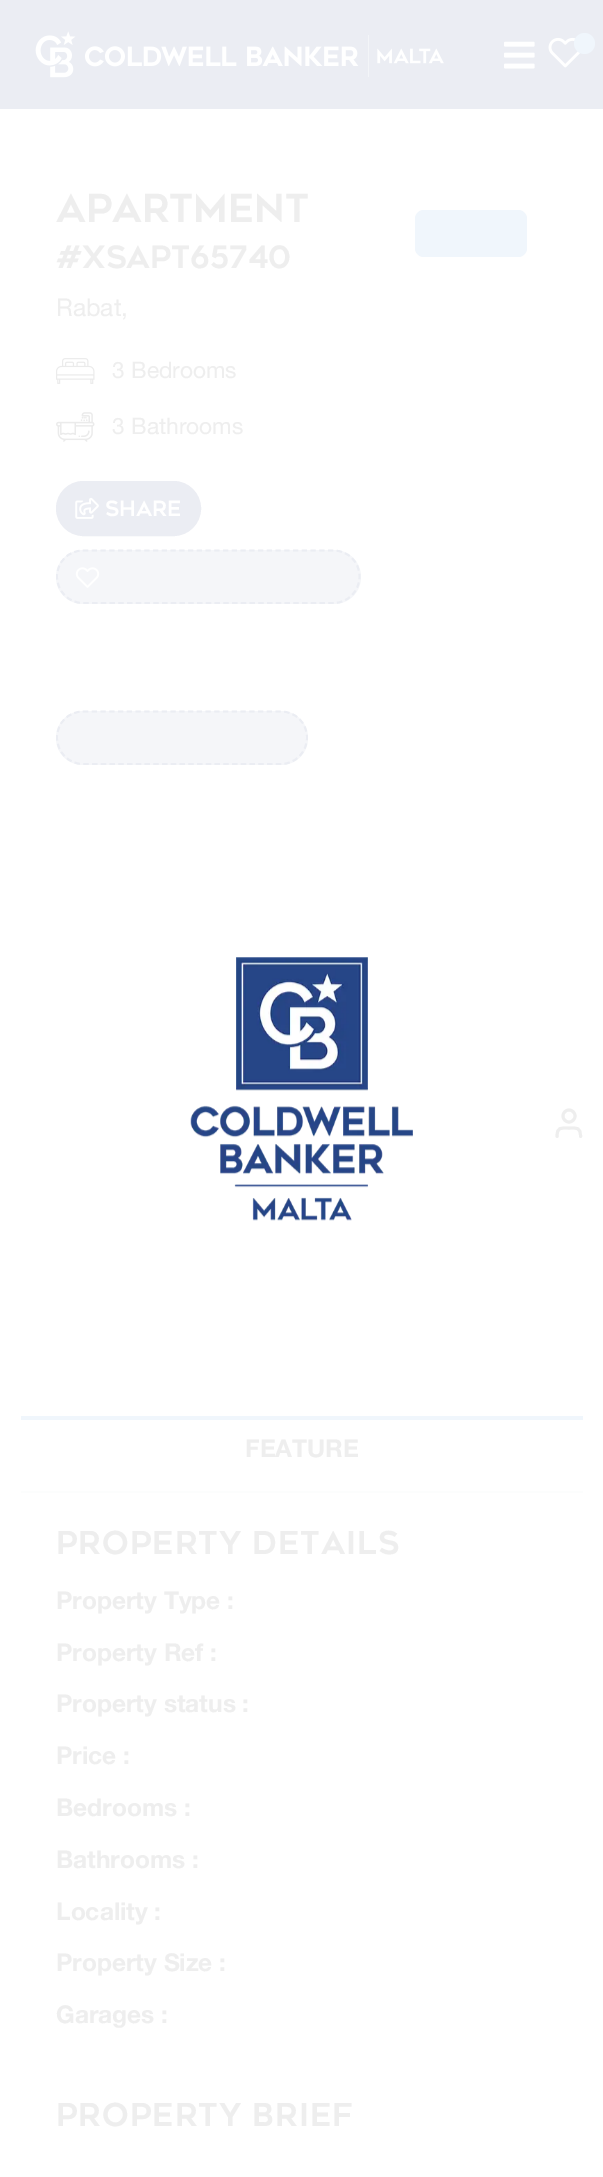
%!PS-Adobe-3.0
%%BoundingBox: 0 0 603 2177
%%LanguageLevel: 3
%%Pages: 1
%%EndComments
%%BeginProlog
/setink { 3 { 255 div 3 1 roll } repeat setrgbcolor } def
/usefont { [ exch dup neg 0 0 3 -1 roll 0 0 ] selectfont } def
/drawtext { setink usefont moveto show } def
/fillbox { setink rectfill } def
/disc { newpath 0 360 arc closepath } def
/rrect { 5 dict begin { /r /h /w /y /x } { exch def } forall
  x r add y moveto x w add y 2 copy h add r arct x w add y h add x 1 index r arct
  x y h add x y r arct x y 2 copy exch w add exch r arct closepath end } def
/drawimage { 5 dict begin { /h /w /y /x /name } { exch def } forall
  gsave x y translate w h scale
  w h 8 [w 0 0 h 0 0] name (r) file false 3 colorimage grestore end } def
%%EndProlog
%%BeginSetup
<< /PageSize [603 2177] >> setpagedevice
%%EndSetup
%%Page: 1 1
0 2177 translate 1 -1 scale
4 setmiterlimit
0 0 603 2177 255 255 255 fillbox
0 0 603 109 235 237 243 fillbox
(assets/img1.rgb) 35 31 409 47 drawimage
(assets/img2.rgb) 504 41 31 28 drawimage
(assets/img3.rgb) 548 37 32 31 drawimage
240 246 252 setink
584.5 43.5 10.5 disc fill
(Apartment) 56 222 /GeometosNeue-Bold 38.5 238 238 238 drawtext
(#XSAPT65740) 56 268 /GeometosNeue-Bold 30.75 238 238 238 drawtext
240 246 252 setink
415 210 112 47 9 rrect fill
(Rabat,) 56 316 /HelveticaNeue-Regular 24.5 238 238 238 drawtext
(assets/img4.rgb) 56 358 39 26 drawimage
(3 Bedrooms) 112 378 /HelveticaNeue-Regular 22.75 238 238 238 drawtext
(assets/img5.rgb) 56 412 39 30 drawimage
(3 Bathrooms) 112 434 /HelveticaNeue-Regular 22.75 238 238 238 drawtext
235 237 243 setink
57 482 143 53 26.5 rrect gsave fill grestore
2 setlinewidth
stroke
(assets/img6.rgb) 75 497 24 22 drawimage
(Share) 105 516 /GeometosNeue-Bold 21 255 255 255 drawtext
245 246 249 setink
56 550 305 54 27 rrect fill
235 237 243 setink
1.8 setlinewidth
[5.25 3.5] 0 setdash
83 550.5 moveto 333.5 550.5 lineto 348 550.5 359.5 562 359.5 576.5 curveto 359.5 591 348 603 333.5 603 curveto 83 603 lineto 68.5 603 57 591 57 576.5 curveto 57 562 68.5 550.5 83 550.5 curveto closepath stroke
(assets/img7.rgb) 75 567 25 21 drawimage
245 246 249 setink
56 711 252 54 27 rrect fill
235 237 243 setink
83 711.5 moveto 281 711.5 lineto 295.5 711.5 307 723 307 737.5 curveto 307 752 295.5 764 281 764 curveto 83 764 lineto 68.5 764 57 752 57 737.5 curveto 57 723 68.5 711.5 83 711.5 curveto closepath stroke
21 1491 562 2 252 253 253 fillbox
21 1416 562 4 240 246 252 fillbox
(FEATURE) 245 1457 /HelveticaNeue-Bold 24.5 238 238 238 drawtext
/GeometosNeue-Bold 31.5 usefont
56 1554 moveto 1 0 (Property Details) ashow
(Property Type :) 56 1609 /HelveticaNeue-Bold 24.5 238 238 238 drawtext
(Property Ref :) 56 1661 /HelveticaNeue-Bold 24.5 238 238 238 drawtext
(Property status :) 56 1712 /HelveticaNeue-Bold 24.5 238 238 238 drawtext
(Price :) 56 1764 /HelveticaNeue-Bold 24.5 238 238 238 drawtext
(Bedrooms :) 56 1816 /HelveticaNeue-Bold 24.5 238 238 238 drawtext
(Bathrooms :) 56 1868 /HelveticaNeue-Bold 24.5 238 238 238 drawtext
(Locality :) 56 1920 /HelveticaNeue-Bold 24.5 238 238 238 drawtext
(Property Size :) 56 1971 /HelveticaNeue-Bold 24.5 238 238 238 drawtext
(Garages :) 56 2023 /HelveticaNeue-Bold 24.5 238 238 238 drawtext
/GeometosNeue-Bold 31.5 usefont
56 2126 moveto 1 0 (Property Brief) ashow
(assets/img8.rgb) 190 957 223 264 drawimage
2.9 setlinewidth
1 setlinecap
1 setlinejoin
[] 0 setdash
580.5 1136.5 moveto 580.5 1127 577 1128 569 1128 curveto 560.5 1128 557 1127 557 1136.5 curveto stroke
0 setlinecap
0 setlinejoin
569 1116 6 disc stroke
showpage
%%EOF
